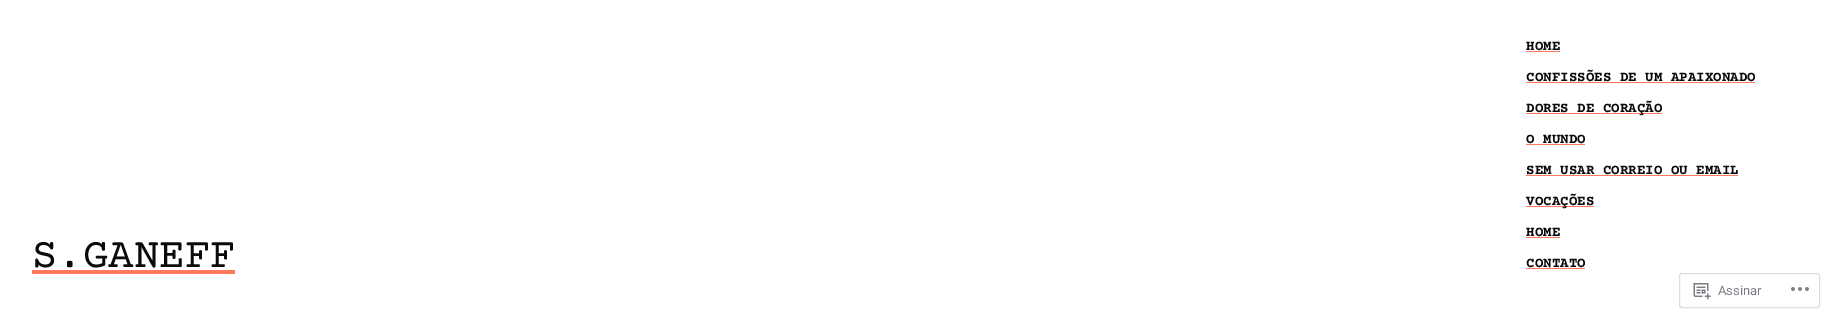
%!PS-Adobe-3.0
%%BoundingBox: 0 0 1830 318
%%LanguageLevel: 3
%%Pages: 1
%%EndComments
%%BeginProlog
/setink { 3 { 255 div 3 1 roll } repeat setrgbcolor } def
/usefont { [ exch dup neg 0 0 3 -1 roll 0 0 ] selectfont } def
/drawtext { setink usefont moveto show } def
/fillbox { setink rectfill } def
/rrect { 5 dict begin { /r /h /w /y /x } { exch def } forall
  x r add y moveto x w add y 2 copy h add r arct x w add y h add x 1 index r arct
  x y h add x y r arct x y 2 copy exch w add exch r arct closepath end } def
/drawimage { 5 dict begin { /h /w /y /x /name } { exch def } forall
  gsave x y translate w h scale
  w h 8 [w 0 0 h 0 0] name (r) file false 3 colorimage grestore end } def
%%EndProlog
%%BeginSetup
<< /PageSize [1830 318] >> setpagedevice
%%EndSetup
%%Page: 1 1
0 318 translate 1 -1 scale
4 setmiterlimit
0 0 1830 318 255 255 255 fillbox
(S.GANEFF) 32 267 /CourierPrime-Regular 42.5 10 10 10 drawtext
32 270 203 4 255 122 92 fillbox
(HOME) 1526 50 /CourierPrime-Bold 14.2 10 10 10 drawtext
1526 51 34 1 255 122 92 fillbox
(CONFISSÕES DE UM APAIXONADO) 1526 81 /CourierPrime-Bold 14.2 10 10 10 drawtext
1526 82 229 1 255 122 92 fillbox
1526 113 136 1 255 122 92 fillbox
(DORES DE CORAÇÃO) 1526 112 /CourierPrime-Bold 14.2 10 10 10 drawtext
(O MUNDO) 1526 143 /CourierPrime-Bold 14.2 10 10 10 drawtext
1526 144 59 1 255 122 92 fillbox
(SEM USAR CORREIO OU EMAIL) 1526 174 /CourierPrime-Bold 14.2 10 10 10 drawtext
1526 175 212 1 255 122 92 fillbox
1526 206 68 1 255 122 92 fillbox
(VOCAÇÕES) 1526 205 /CourierPrime-Bold 14.2 10 10 10 drawtext
(HOME) 1526 236 /CourierPrime-Bold 14.2 10 10 10 drawtext
1526 237 34 1 255 122 92 fillbox
(CONTATO) 1526 267 /CourierPrime-Bold 14.2 10 10 10 drawtext
1526 268 59 1 255 122 92 fillbox
221 221 223 setink
1679.5 273.5 140 34 2.5 rrect stroke
(assets/img1.rgb) 1693 283 18 17 drawimage
(Assinar) 1718 295 /Roboto-Regular 13 123 127 133 drawtext
(assets/img2.rgb) 1791 287 18 4 drawimage
showpage
%%EOF
